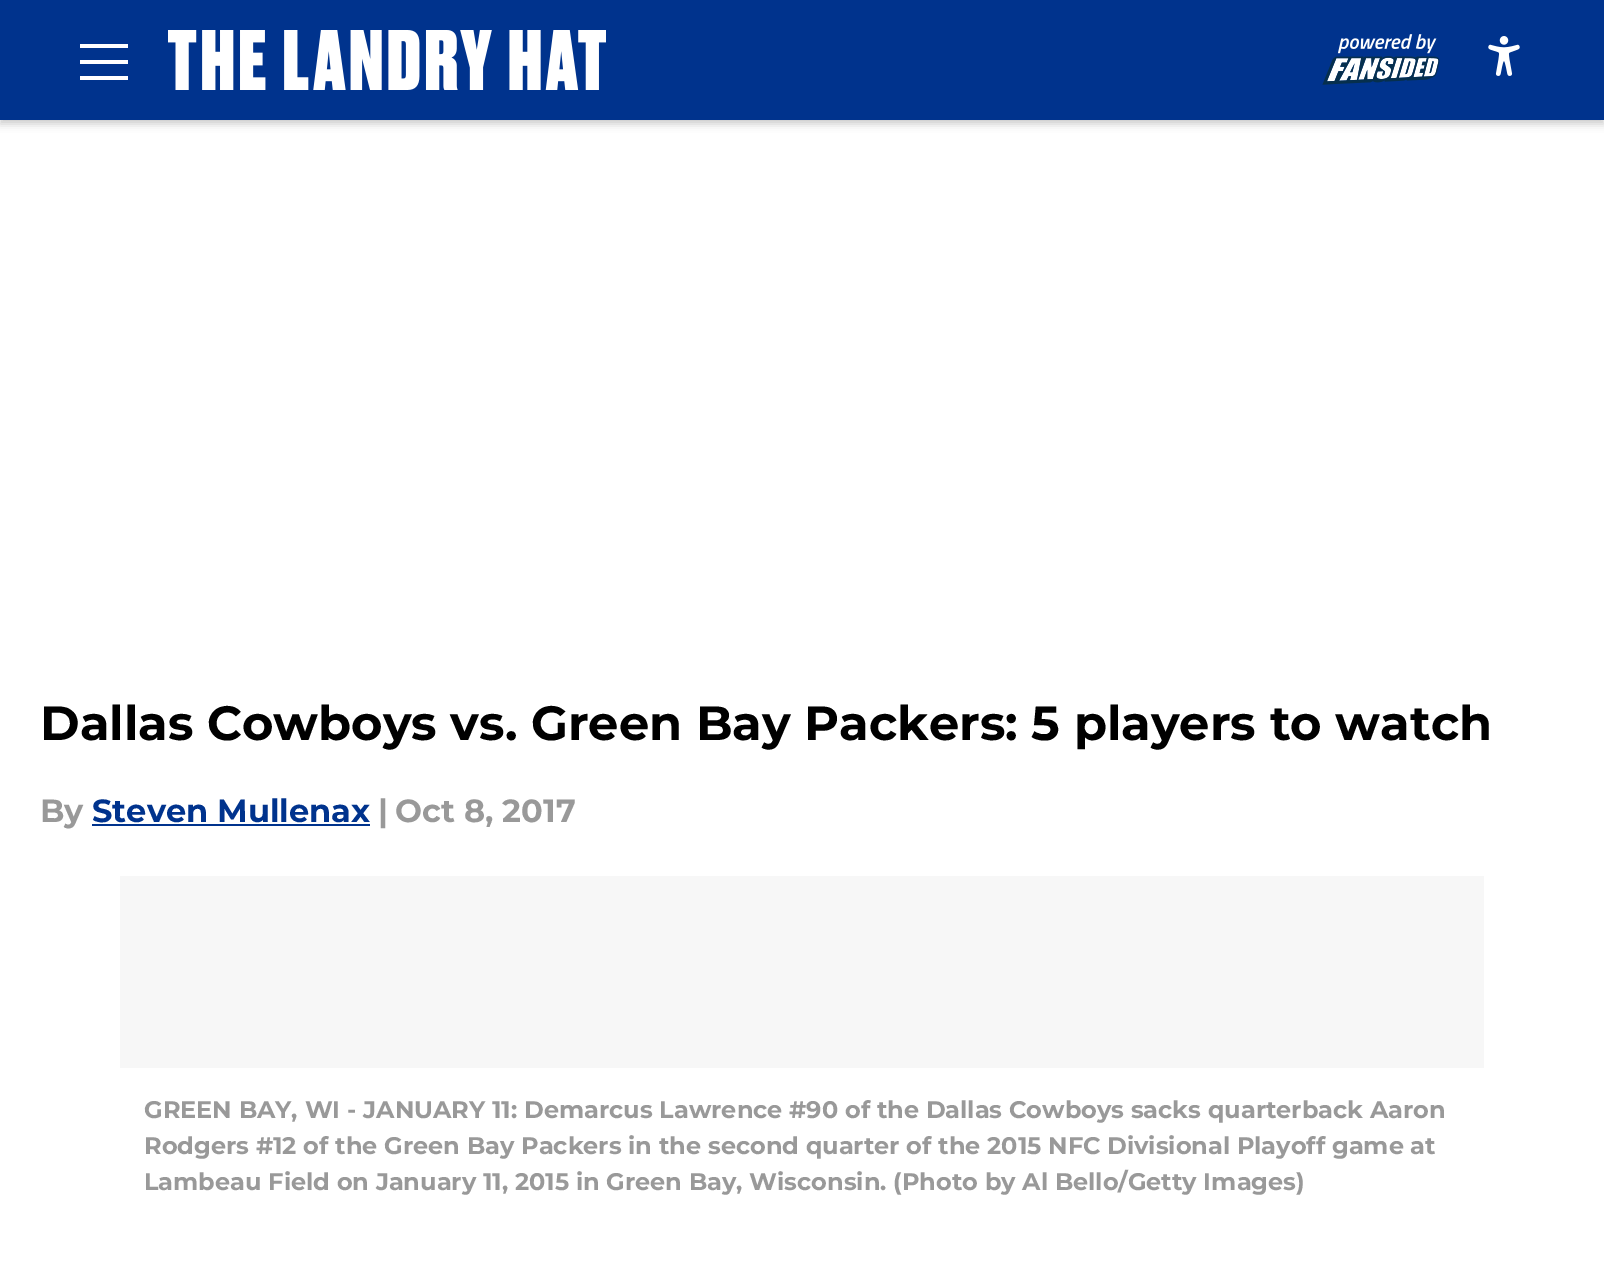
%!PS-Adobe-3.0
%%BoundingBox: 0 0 1604 1273
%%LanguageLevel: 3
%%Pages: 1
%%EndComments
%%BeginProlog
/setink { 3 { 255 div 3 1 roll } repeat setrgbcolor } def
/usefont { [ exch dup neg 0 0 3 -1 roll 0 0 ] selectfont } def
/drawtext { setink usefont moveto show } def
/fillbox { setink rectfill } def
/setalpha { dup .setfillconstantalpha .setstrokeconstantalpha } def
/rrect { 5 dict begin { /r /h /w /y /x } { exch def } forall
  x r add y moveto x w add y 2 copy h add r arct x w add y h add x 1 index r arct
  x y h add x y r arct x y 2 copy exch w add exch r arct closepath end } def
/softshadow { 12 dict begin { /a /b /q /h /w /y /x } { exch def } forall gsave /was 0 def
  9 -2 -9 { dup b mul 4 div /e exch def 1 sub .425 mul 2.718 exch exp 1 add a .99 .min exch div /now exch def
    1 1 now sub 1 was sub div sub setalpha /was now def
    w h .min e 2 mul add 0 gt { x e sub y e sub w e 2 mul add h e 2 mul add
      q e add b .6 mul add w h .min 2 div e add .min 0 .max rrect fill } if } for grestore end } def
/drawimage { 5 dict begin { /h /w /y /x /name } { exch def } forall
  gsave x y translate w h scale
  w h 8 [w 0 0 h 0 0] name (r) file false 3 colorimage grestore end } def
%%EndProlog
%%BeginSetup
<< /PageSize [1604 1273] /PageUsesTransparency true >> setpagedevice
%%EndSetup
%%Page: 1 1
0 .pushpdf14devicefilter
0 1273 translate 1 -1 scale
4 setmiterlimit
0 0 1604 1273 255 255 255 fillbox
0 0 0 setink
0 4 1604 120 0 4 0.2 softshadow
0 0 1604 120 0 51 141 fillbox
80 44 48 4 255 255 255 fillbox
80 60 48 4 255 255 255 fillbox
80 76 48 4 255 255 255 fillbox
(assets/img1.rgb) 168 30 438 60 drawimage
(assets/img2.rgb) 1322 34 118 51 drawimage
(assets/img3.rgb) 1488 36 32 40 drawimage
(Dallas Cowboys vs. Green Bay Packers: 5 players to watch) 40 740 /Montserrat-Thin 48 0 0 0 drawtext
(By) 40 822 /Montserrat-Thin 32 153 153 153 drawtext
(Steven Mullenax) 92 822 /Montserrat-Thin 32 0 51 141 drawtext
92 824 278 2 0 51 141 fillbox
(|) 378 822 /Montserrat-Thin 32 153 153 153 drawtext
(Oct 8, 2017) 395 822 /Montserrat-Thin 32 153 153 153 drawtext
120 876 1364 192 247 247 247 fillbox
(GREEN BAY, WI - JANUARY 11: Demarcus Lawrence #90 of the Dallas Cowboys sacks quarterback Aaron) 144 1118 /Montserrat-Thin 24 153 153 153 drawtext
(Rodgers #12 of the Green Bay Packers in the second quarter of the 2015 NFC Divisional Playoff game at) 144 1154 /Montserrat-Thin 24 153 153 153 drawtext
(Lambeau Field on January 11, 2015 in Green Bay, Wisconsin. \(Photo by Al Bello/Getty Images\)) 144 1190 /Montserrat-Thin 24 153 153 153 drawtext
.poppdf14devicefilter showpage
%%EOF
